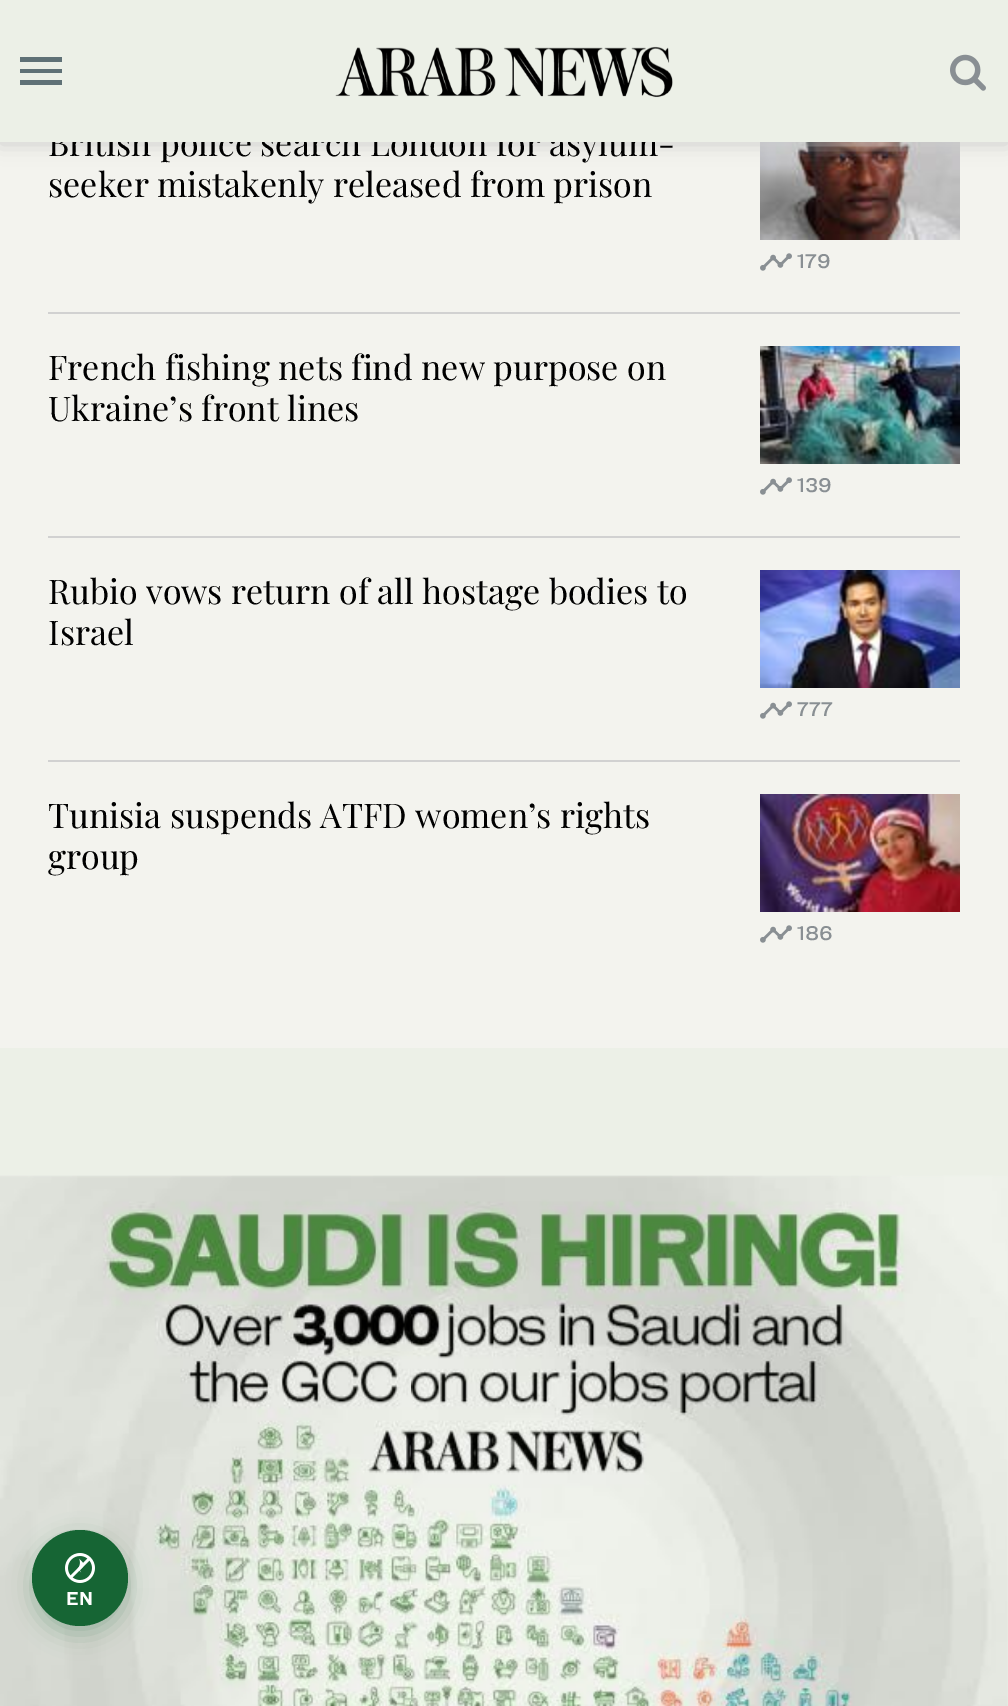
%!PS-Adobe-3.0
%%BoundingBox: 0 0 1008 1706
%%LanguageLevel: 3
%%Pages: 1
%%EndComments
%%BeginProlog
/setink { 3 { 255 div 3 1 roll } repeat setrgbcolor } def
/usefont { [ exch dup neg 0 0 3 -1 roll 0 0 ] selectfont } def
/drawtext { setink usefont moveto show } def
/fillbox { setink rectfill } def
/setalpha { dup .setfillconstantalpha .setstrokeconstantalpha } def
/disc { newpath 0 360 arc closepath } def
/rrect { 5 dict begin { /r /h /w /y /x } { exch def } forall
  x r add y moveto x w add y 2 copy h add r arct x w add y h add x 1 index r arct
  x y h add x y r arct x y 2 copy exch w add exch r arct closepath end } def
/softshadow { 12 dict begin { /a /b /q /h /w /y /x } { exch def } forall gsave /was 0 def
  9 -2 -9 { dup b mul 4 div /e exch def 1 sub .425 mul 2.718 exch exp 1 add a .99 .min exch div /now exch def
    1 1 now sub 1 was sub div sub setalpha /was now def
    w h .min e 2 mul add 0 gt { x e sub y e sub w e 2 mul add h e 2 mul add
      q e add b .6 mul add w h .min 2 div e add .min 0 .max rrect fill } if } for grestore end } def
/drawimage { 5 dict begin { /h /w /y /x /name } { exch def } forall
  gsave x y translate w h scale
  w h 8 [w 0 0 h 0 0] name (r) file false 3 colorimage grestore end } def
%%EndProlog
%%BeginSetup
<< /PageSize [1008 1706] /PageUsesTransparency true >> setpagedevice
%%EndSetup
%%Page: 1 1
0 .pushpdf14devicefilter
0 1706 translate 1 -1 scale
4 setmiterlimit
0 0 1008 1706 236 240 231 fillbox
0 142 1008 906 243 243 238 fillbox
(assets/img3.rgb) 760 142 200 98 drawimage
204 204 204 setink
0 2 1008 142 0 10 1 softshadow
(British police search London for asylum-) 48 156 /PlayfairDisplay-Regular 34 0 0 0 drawtext
0 0 1008 142 236 240 231 fillbox
95 113 118 setink
20 85 moveto 62 85 lineto 62 80 lineto 20 80 lineto closepath 20 73 moveto 62 73 lineto 62 69 lineto 20 69 lineto closepath 20 57 moveto 20 62 lineto 62 62 lineto 62 57 lineto closepath fill
(assets/img1.rgb) 335 46 338 52 drawimage
(assets/img2.rgb) 950 54 36 37 drawimage
48 312 912 2 209 209 209 fillbox
(seeker mistakenly released from prison) 48 197 /PlayfairDisplay-Regular 34 0 0 0 drawtext
(assets/img4.rgb) 760 253 32 18 drawimage
(179) 797 268 /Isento-Medium 20 137 143 147 drawtext
48 536 912 2 209 209 209 fillbox
(French fishing nets find new purpose on) 48 380 /PlayfairDisplay-Regular 34 0 0 0 drawtext
(Ukraine’s front lines) 48 421 /PlayfairDisplay-Regular 34 0 0 0 drawtext
(assets/img5.rgb) 760 346 200 118 drawimage
(assets/img4.rgb) 760 477 32 18 drawimage
(139) 797 492 /Isento-Medium 20 137 143 147 drawtext
48 760 912 2 209 209 209 fillbox
(Rubio vows return of all hostage bodies to) 48 604 /PlayfairDisplay-Regular 34 0 0 0 drawtext
(Israel) 48 645 /PlayfairDisplay-Regular 34 0 0 0 drawtext
(assets/img6.rgb) 760 570 200 118 drawimage
(assets/img4.rgb) 760 701 32 18 drawimage
(777) 797 716 /Isento-Medium 20 137 143 147 drawtext
(Tunisia suspends ATFD women’s rights) 48 828 /PlayfairDisplay-Regular 34 0 0 0 drawtext
(group) 48 869 /PlayfairDisplay-Regular 34 0 0 0 drawtext
(assets/img7.rgb) 760 794 200 118 drawimage
(assets/img4.rgb) 760 925 32 18 drawimage
(186) 797 940 /Isento-Medium 20 137 143 147 drawtext
(assets/img8.rgb) 0 1175 1008 531 drawimage
22 101 52 setink
32 1538 96 96 48 12 0.3 softshadow
80 1578 48 disc fill
(assets/img9.rgb) 65 1553 30 30 drawimage
/Isento-Bold 18 usefont
255 255 255 setink
66 1605 moveto 1 0 (EN) ashow
.poppdf14devicefilter showpage
%%EOF
